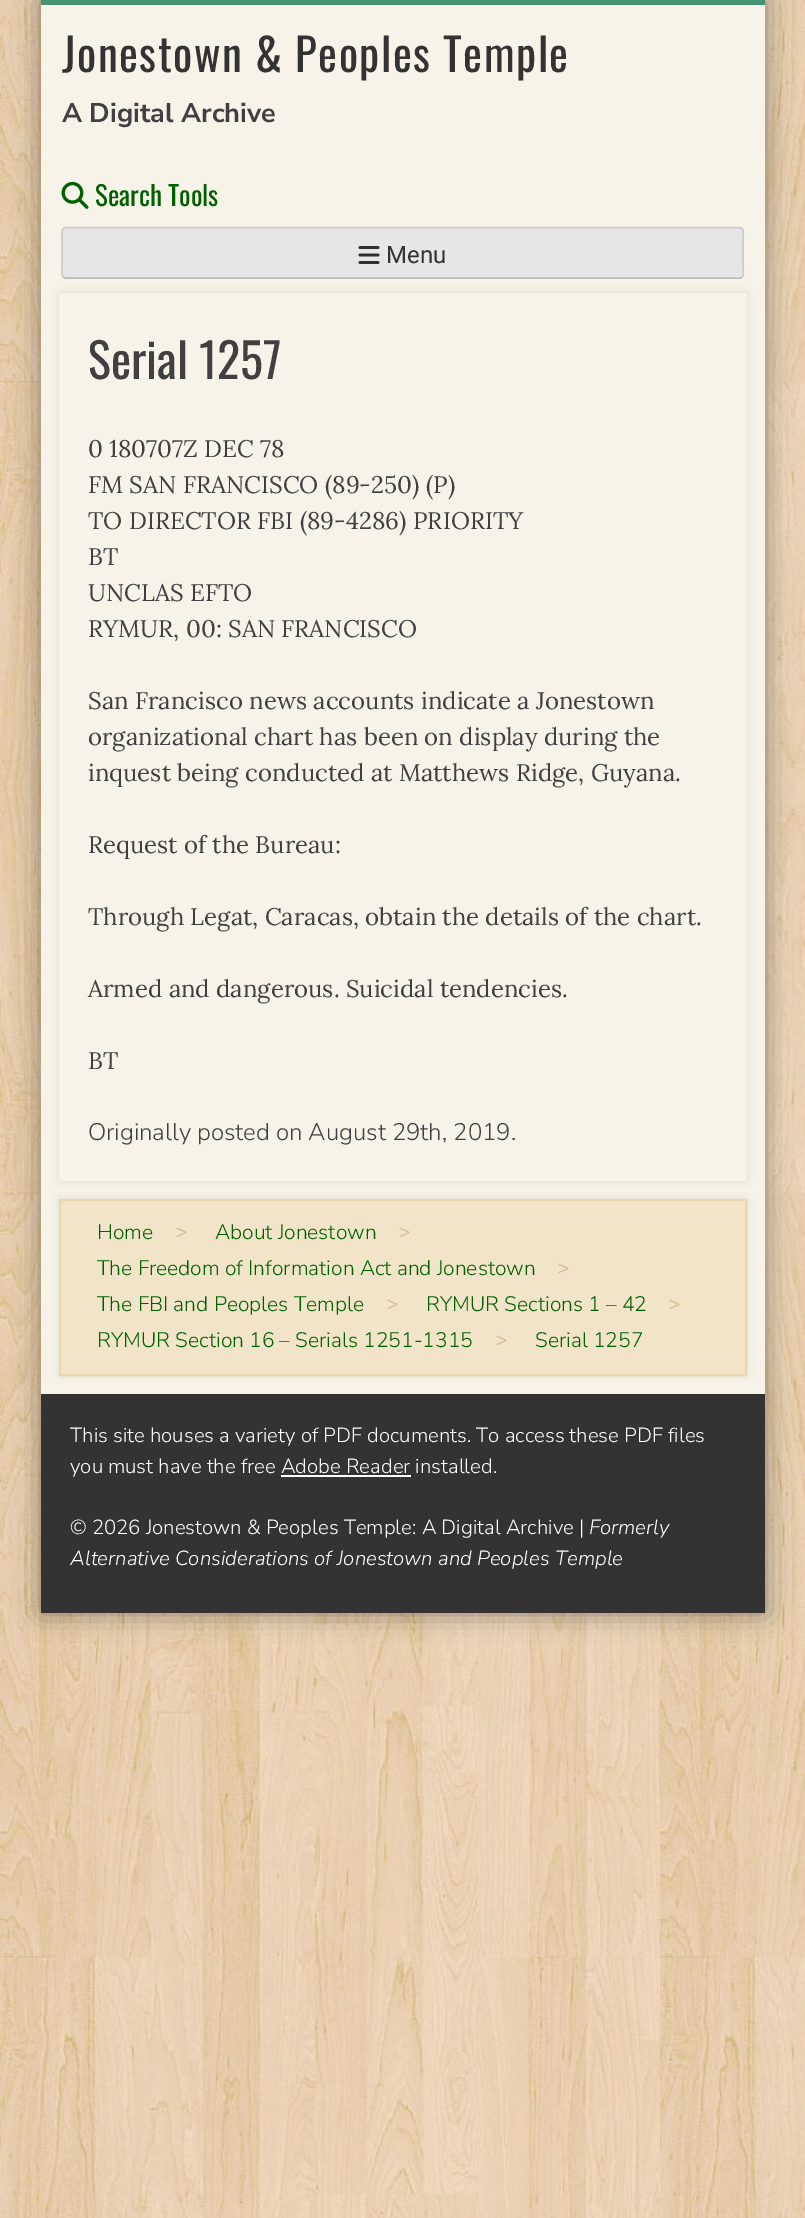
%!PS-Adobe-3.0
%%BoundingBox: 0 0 805 2218
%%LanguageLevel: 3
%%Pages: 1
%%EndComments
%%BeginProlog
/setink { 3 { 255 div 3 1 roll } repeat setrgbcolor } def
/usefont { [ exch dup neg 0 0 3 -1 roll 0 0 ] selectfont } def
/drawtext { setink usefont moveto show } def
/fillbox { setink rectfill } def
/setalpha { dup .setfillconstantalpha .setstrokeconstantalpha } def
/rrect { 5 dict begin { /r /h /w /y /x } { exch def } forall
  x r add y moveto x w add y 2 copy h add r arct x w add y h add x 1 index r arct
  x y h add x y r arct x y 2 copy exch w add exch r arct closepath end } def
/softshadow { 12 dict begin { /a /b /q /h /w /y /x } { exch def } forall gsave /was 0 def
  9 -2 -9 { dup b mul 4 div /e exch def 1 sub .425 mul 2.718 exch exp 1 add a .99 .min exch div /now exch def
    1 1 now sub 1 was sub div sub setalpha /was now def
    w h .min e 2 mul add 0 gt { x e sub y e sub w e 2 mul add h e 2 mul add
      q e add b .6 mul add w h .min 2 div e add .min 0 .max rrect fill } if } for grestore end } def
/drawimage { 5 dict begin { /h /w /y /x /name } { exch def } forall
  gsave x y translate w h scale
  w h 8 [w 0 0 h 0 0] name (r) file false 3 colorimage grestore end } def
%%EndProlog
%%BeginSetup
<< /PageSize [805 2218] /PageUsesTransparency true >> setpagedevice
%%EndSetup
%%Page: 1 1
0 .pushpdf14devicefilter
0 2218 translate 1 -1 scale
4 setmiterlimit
0 0 805 2218 255 255 255 fillbox
(assets/img1.rgb) 0 0 805 2218 drawimage
0 0 0 setink
41 0 724 1613 0 13.5 0.4 softshadow
41 5 724 1389 248 243 233 fillbox
41 0 724 5 70 146 114 fillbox
/Oswald-Regular 45 usefont
51 51 51 setink
62 72 moveto 1.5 0 (Jonestown & Peoples Temple) ashow
(A Digital Archive) 62 122 /NunitoSans-Bold 27 64 64 64 drawtext
(assets/img2.rgb) 61 181 28 28 drawimage
(Search Tools) 95 206 /Oswald-Regular 27 0 96 0 drawtext
230 230 230 setink
62 227 682 52 5 rrect fill
187 187 187 setink
1.5 setlinewidth
742 277 moveto 741.5 278 740.5 278 739.5 278 curveto 66 278 lineto 65 278 64 278 63.5 277 curveto stroke
204 204 204 setink
63.5 277 moveto 61 275 62 269 62 267 curveto 62 238 lineto 62 235.5 60.5 228 65.5 227.5 curveto 740 227.5 lineto 745 228 743 235.5 743 238 curveto 743 267 lineto 743 269 744.5 275 742 277 curveto stroke
(assets/img3.rgb) 358 246 22 18 drawimage
(Menu) 386 263 /Roboto-Regular 24 51 51 51 drawtext
gsave
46 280 moveto 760 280 lineto 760 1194 lineto 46 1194 lineto closepath 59 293 moveto 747 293 lineto 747 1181 lineto 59 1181 lineto closepath eoclip newpath
0 0 0 setink
59 293 688 888 0 4 0.1 softshadow
grestore
(Serial 1257) 88 379 /Oswald-Regular 48 64 64 64 drawtext
(0 180707Z DEC 78) 88 457 /Lora-Regular 24 64 64 64 drawtext
(FM SAN FRANCISCO \(89-250\) \(P\)) 88 493 /Lora-Regular 24 64 64 64 drawtext
(TO DIRECTOR FBI \(89-4286\) PRIORITY) 88 529 /Lora-Regular 24 64 64 64 drawtext
(BT) 88 565 /Lora-Regular 24 64 64 64 drawtext
(UNCLAS EFTO) 88 601 /Lora-Regular 24 64 64 64 drawtext
(RYMUR, 00: SAN FRANCISCO) 88 637 /Lora-Regular 24 64 64 64 drawtext
(San Francisco news accounts indicate a Jonestown) 88 709 /Lora-Regular 24 64 64 64 drawtext
(organizational chart has been on display during the) 88 745 /Lora-Regular 24 64 64 64 drawtext
(inquest being conducted at Matthews Ridge, Guyana.) 88 781 /Lora-Regular 24 64 64 64 drawtext
(Request of the Bureau:) 88 853 /Lora-Regular 24 64 64 64 drawtext
(Through Legat, Caracas, obtain the details of the chart.) 88 925 /Lora-Regular 24 64 64 64 drawtext
(Armed and dangerous. Suicidal tendencies.) 88 997 /Lora-Regular 24 64 64 64 drawtext
(BT) 88 1069 /Lora-Regular 24 64 64 64 drawtext
(Originally posted on August 29th, 2019.) 88 1140 /NunitoSans-Light 24 64 64 64 drawtext
0 0 0 setink
59 1199 688 177 0 4 0.1 softshadow
242 228 201 setink
60 1200 moveto 746 1200 lineto 746 1375 lineto 60 1375 lineto closepath gsave fill grestore
235 214 173 setink
2 setlinewidth
stroke
(Home) 97 1239 /NunitoSans-Light 21 0 96 0 drawtext
(>) 176 1239 /Lora-Regular 21 208 186 145 drawtext
(About Jonestown) 215 1239 /NunitoSans-Light 21 0 96 0 drawtext
(>) 399 1239 /Lora-Regular 21 208 186 145 drawtext
(The Freedom of Information Act and Jonestown) 97 1275 /NunitoSans-Light 21 0 96 0 drawtext
(>) 558 1275 /Lora-Regular 21 208 186 145 drawtext
(The FBI and Peoples Temple) 97 1311 /NunitoSans-Light 21 0 96 0 drawtext
(>) 387 1311 /Lora-Regular 21 208 186 145 drawtext
(RYMUR Sections 1 – 42) 426 1311 /NunitoSans-Light 21 0 96 0 drawtext
(>) 669 1311 /Lora-Regular 21 208 186 145 drawtext
(RYMUR Section 16 – Serials 1251-1315) 97 1347 /NunitoSans-Light 21 0 96 0 drawtext
(>) 496 1347 /Lora-Regular 21 208 186 145 drawtext
(Serial 1257) 535 1347 /NunitoSans-Light 21 0 96 0 drawtext
41 1394 724 219 51 51 51 fillbox
(This site houses a variety of PDF documents. To access these PDF files) 70 1442 /NunitoSans-Light 20.4 255 255 255 drawtext
(you must have the free Adobe Reader installed.) 70 1473 /NunitoSans-Light 20.4 255 255 255 drawtext
281 1475 130 2 255 255 255 fillbox
(© 2026 Jonestown & Peoples Temple: A Digital Archive |) 70 1534 /NunitoSans-Light 20.4 255 255 255 drawtext
(Formerly) 589 1534 /NunitoSans-LightItalic 20.4 255 255 255 drawtext
(Alternative Considerations of Jonestown and Peoples Temple) 70 1565 /NunitoSans-LightItalic 20.4 255 255 255 drawtext
.poppdf14devicefilter showpage
%%EOF
